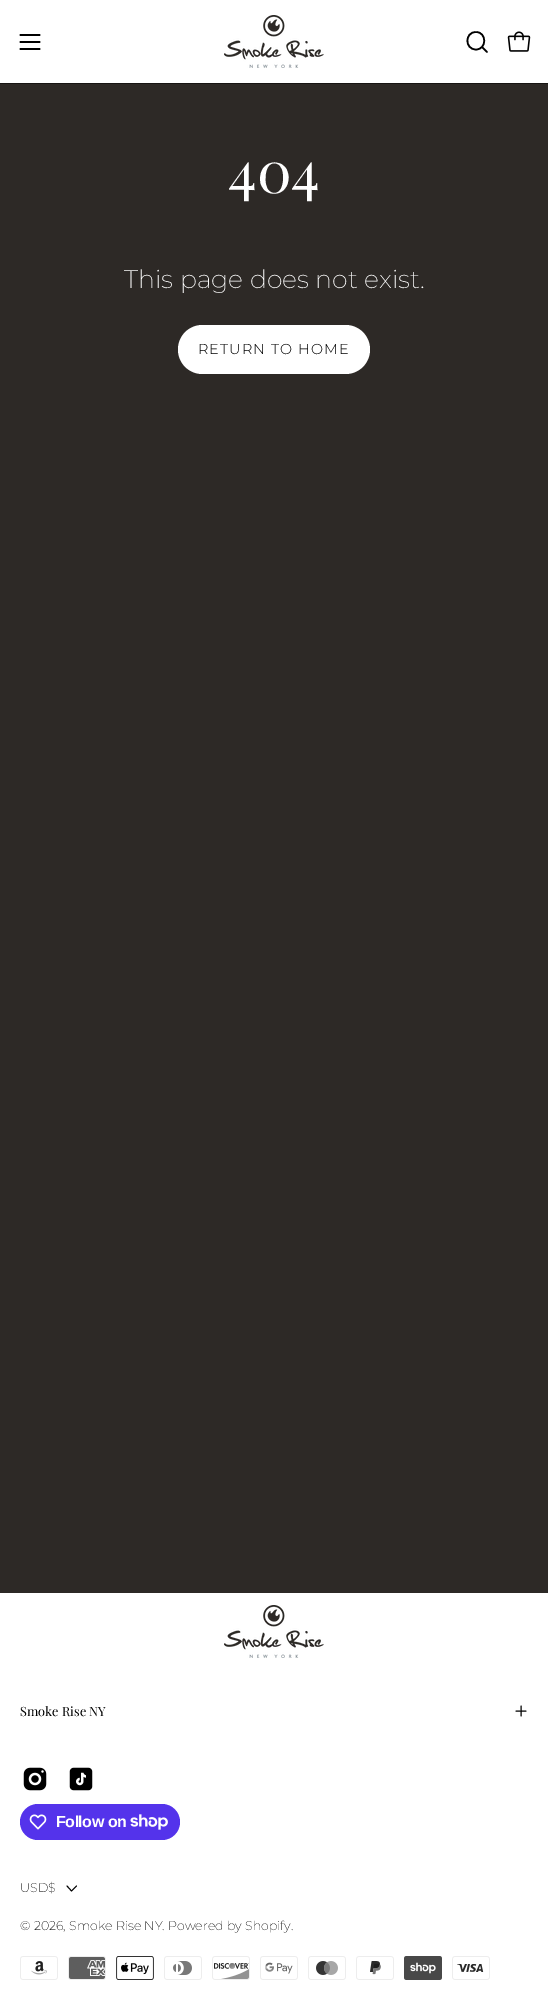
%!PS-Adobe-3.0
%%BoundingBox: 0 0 548 1996
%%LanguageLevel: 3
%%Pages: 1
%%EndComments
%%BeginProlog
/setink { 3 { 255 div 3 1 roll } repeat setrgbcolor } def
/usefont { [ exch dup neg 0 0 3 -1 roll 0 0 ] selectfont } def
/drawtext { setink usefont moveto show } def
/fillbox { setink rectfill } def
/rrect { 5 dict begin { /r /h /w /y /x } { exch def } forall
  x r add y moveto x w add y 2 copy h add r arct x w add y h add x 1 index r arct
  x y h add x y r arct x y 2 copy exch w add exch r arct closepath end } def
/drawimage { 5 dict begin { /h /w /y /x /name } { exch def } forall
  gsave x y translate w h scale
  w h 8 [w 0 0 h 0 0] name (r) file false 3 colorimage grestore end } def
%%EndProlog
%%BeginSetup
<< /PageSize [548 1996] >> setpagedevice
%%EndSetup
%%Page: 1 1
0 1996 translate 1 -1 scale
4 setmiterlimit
0 0 548 1996 45 41 38 fillbox
0 0 548 83 255 255 255 fillbox
0 0 0 setink
1.8 setlinewidth
1 setlinecap
1 setlinejoin
20.5 42 moveto 39.5 42 lineto 20.5 35 moveto 39.5 35 lineto 20.5 49 moveto 39.5 49 lineto stroke
(assets/img1.rgb) 224 15 100 53 drawimage
1.6 setlinewidth
476 49.5 moveto 487 49.5 487 32 476 32 curveto 464.5 32 464.5 49.5 476 49.5 curveto closepath 482 47 moveto 487 52 lineto stroke
(assets/img2.rgb) 507 31 24 21 drawimage
0 83 548 1 23 21 19 fillbox
(404) 228 193 /PlayfairDisplay-Regular 58 255 255 255 drawtext
(This page does not exist.) 124 288 /Montserrat-ExtraLight 25.25 255 255 255 drawtext
178 325 192 49 24.5 rrect fill
/Montserrat-Light 14.4 usefont
0 0 0 setink
198 354 moveto 1.1 0 (RETURN TO HOME) ashow
0 1593 548 403 255 255 255 fillbox
(assets/img1.rgb) 224 1605 100 53 drawimage
(Smoke Rise NY) 20 1716 /PlayfairDisplay-Regular 12.75 0 0 0 drawtext
0.9 setlinewidth
516 1711 moveto 526 1711 lineto 521 1706 moveto 521 1716 lineto stroke
(assets/img3.rgb) 23 1767 24 24 drawimage
(assets/img4.rgb) 69 1767 24 24 drawimage
84 51 235 setink
20 1804 160 36 18 rrect fill
(assets/img5.rgb) 29 1814 18 16 drawimage
/LiberationSans-Bold 16 usefont
255 255 255 setink
56 1827 moveto -0.5 0 (Follow on) ashow
(assets/img6.rgb) 130 1814 38 16 drawimage
(USD$) 20 1892 /Montserrat-ExtraLight 12.6 0 0 0 drawtext
76.5 1886 moveto 71.5 1891 lineto 67 1886 lineto stroke
(© 2026, Smoke Rise NY. Powered by Shopify.) 20 1930 /Montserrat-ExtraLight 12.6 0 0 0 drawtext
(assets/img7.rgb) 20 1956 38 24 drawimage
(assets/img8.rgb) 68 1956 38 24 drawimage
(assets/img9.rgb) 116 1956 38 24 drawimage
(assets/img10.rgb) 164 1956 38 24 drawimage
(assets/img11.rgb) 212 1956 38 24 drawimage
(assets/img12.rgb) 260 1956 38 24 drawimage
(assets/img13.rgb) 308 1956 38 24 drawimage
(assets/img14.rgb) 356 1956 38 24 drawimage
(assets/img15.rgb) 404 1956 38 24 drawimage
(assets/img16.rgb) 452 1956 38 24 drawimage
showpage
%%EOF
